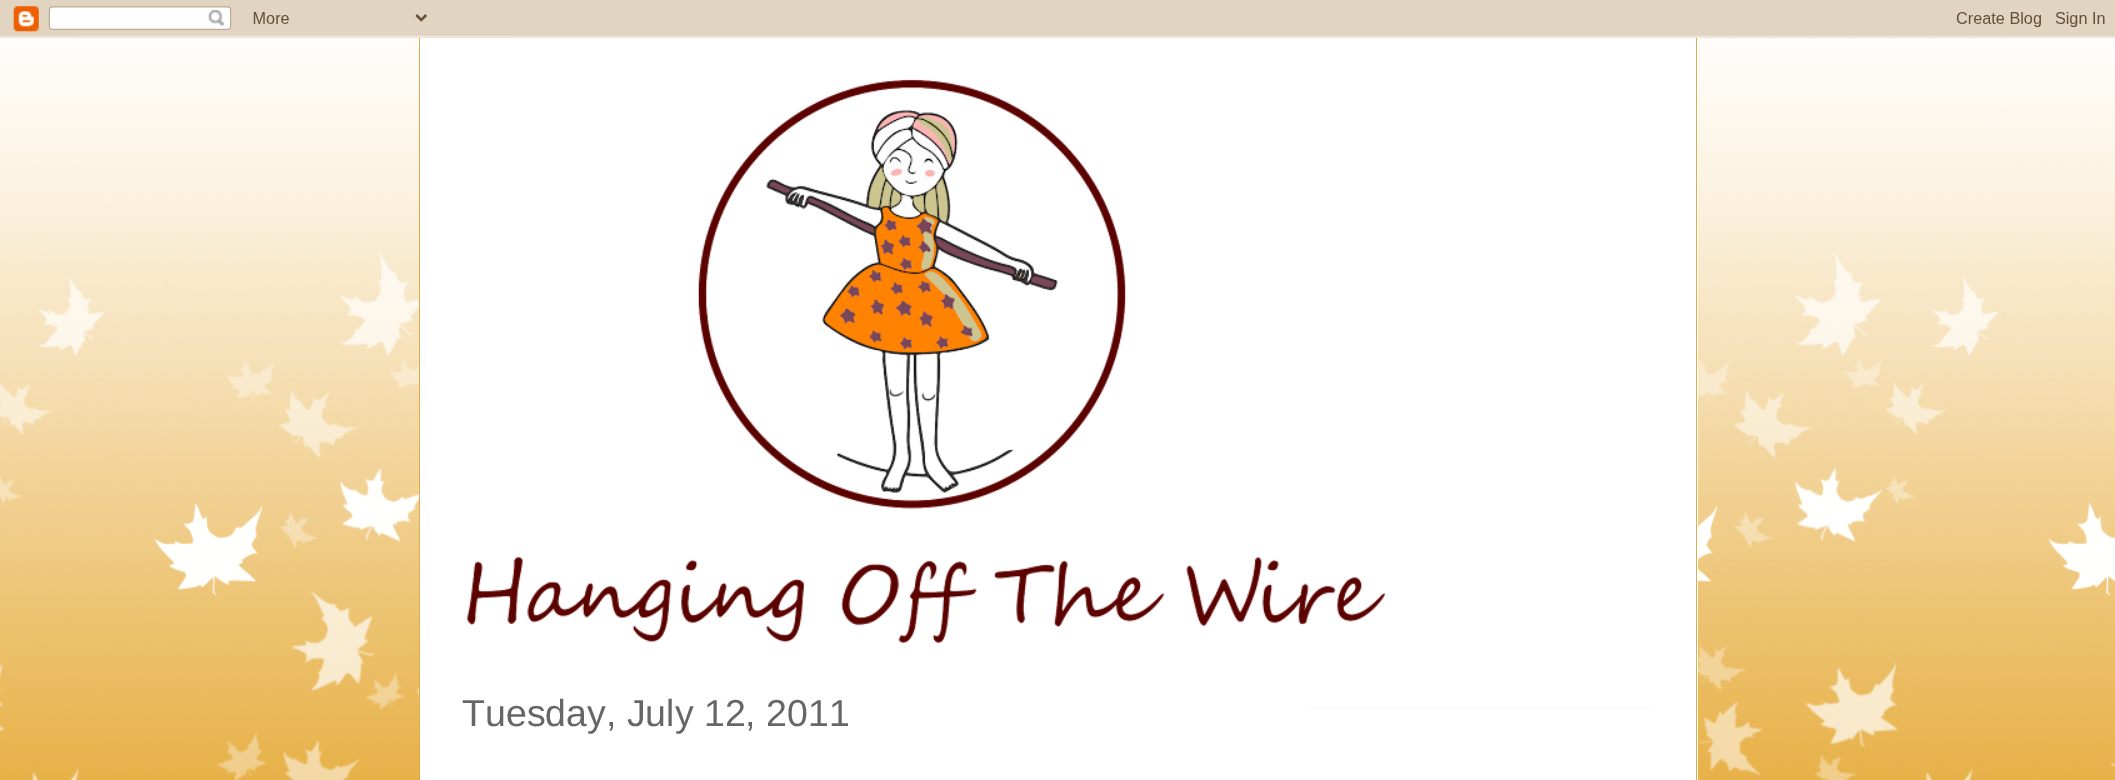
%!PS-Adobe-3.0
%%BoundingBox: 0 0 2115 780
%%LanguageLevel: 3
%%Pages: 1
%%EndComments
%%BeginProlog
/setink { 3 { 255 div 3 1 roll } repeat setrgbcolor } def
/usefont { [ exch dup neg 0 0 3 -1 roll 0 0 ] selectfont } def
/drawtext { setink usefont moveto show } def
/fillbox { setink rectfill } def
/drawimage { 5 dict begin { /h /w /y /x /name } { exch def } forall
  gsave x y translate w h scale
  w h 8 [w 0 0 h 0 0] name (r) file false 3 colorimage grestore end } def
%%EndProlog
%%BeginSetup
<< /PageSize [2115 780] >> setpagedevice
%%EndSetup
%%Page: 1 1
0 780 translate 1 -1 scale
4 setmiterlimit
0 0 2115 780 227 163 39 fillbox
(assets/img2.rgb) 0 36 2115 744 drawimage
(assets/img1.rgb) 0 0 2115 38 drawimage
420 38 1278 742 255 255 255 fillbox
1696 38 1 742 216 175 76 fillbox
419 38 1 742 216 175 76 fillbox
(assets/img3.rgb) 466 79 920 565 drawimage
(Tuesday, July 12, 2011) 462 726 /LiberationSans-Regular 37.5 102 102 102 drawtext
1310 708 344 1 249 249 249 fillbox
showpage
%%EOF
